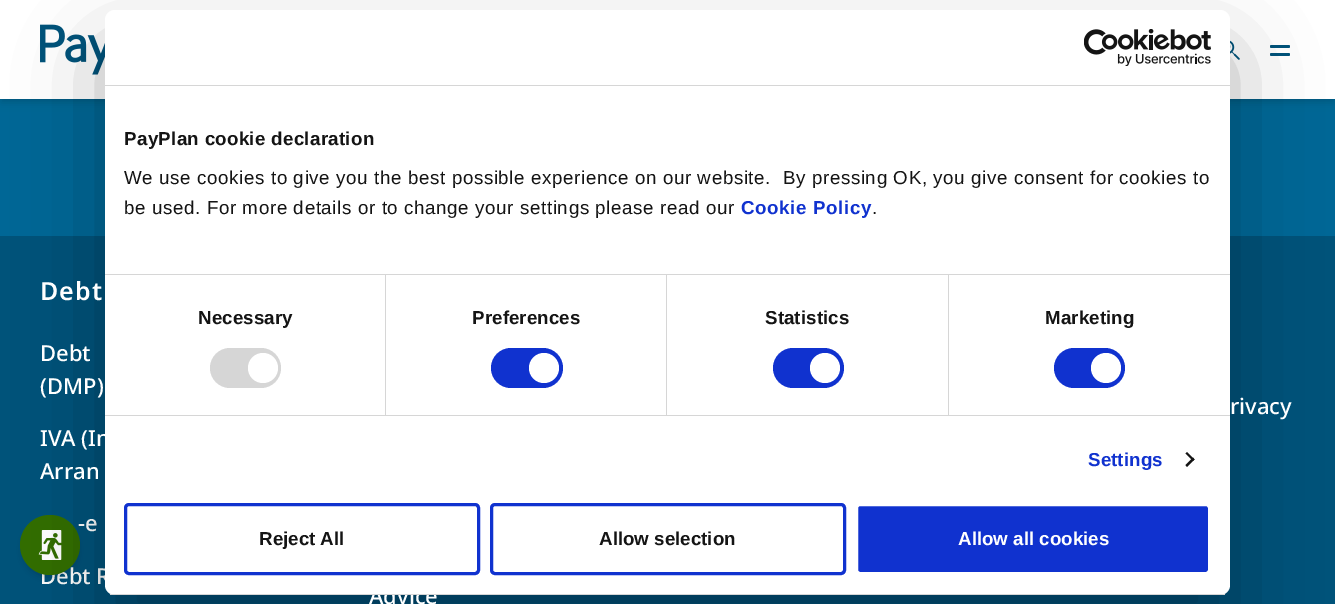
%!PS-Adobe-3.0
%%BoundingBox: 0 0 1335 604
%%LanguageLevel: 3
%%Pages: 1
%%EndComments
%%BeginProlog
/setink { 3 { 255 div 3 1 roll } repeat setrgbcolor } def
/usefont { [ exch dup neg 0 0 3 -1 roll 0 0 ] selectfont } def
/drawtext { setink usefont moveto show } def
/fillbox { setink rectfill } def
/setalpha { dup .setfillconstantalpha .setstrokeconstantalpha } def
/disc { newpath 0 360 arc closepath } def
/rrect { 5 dict begin { /r /h /w /y /x } { exch def } forall
  x r add y moveto x w add y 2 copy h add r arct x w add y h add x 1 index r arct
  x y h add x y r arct x y 2 copy exch w add exch r arct closepath end } def
/softshadow { 12 dict begin { /a /b /q /h /w /y /x } { exch def } forall gsave /was 0 def
  9 -2 -9 { dup b mul 4 div /e exch def 1 sub .425 mul 2.718 exch exp 1 add a .99 .min exch div /now exch def
    1 1 now sub 1 was sub div sub setalpha /was now def
    w h .min e 2 mul add 0 gt { x e sub y e sub w e 2 mul add h e 2 mul add
      q e add b .6 mul add w h .min 2 div e add .min 0 .max rrect fill } if } for grestore end } def
/drawimage { 5 dict begin { /h /w /y /x /name } { exch def } forall
  gsave x y translate w h scale
  w h 8 [w 0 0 h 0 0] name (r) file false 3 colorimage grestore end } def
%%EndProlog
%%BeginSetup
<< /PageSize [1335 604] /PageUsesTransparency true >> setpagedevice
%%EndSetup
%%Page: 1 1
0 .pushpdf14devicefilter
0 604 translate 1 -1 scale
4 setmiterlimit
0 0 1335 604 0 83 122 fillbox
0 99 1335 137 0 103 150 fillbox
0 0 0 setink
3 5 1330 94 0 2.5 0.1 softshadow
1 6 1333 97 0 4 0.1 softshadow
0 0 1335 99 255 255 255 fillbox
(assets/img2.rgb) 40 24 65 51 drawimage
(assets/img3.rgb) 1230 40 10 20 drawimage
0 83 122 setink
1270 45 20 3 1.5 rrect fill
1270 53 20 3 1.5 rrect fill
(-e) 78 531 /NotoSans-Medium 22 255 255 255 drawtext
(Debt R) 40 584 /NotoSans-Medium 22 255 255 255 drawtext
0 0 0 setink
23 520 55 55 27.5 2.5 0.1 softshadow
21 521 58 58 29 4 0.1 softshadow
50 110 0 setink
50 545 30 disc fill
(assets/img4.rgb) 38 530 24 30 drawimage
0 0 0 setink
105 50 1125 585 10 42.5 0.3 softshadow
255 255 255 setink
105 10 1125 585 10 rrect fill
105 85 1125 1 214 214 214 fillbox
(assets/img1.rgb) 1084 29 127 37 drawimage
105 274 1125 1 214 214 214 fillbox
/LiberationSans-Bold 18.75 usefont
20 20 20 setink
124 145 moveto 0.3 0 (PayPlan cookie declaration) ashow
/LiberationSans-Regular 18.75 usefont
124 184 moveto 0.62 0 (We use cookies to give you the best possible experience on our website.  By pressing OK, you give consent for cookies to) ashow
124 214 moveto 0.62 0 (be used. For more details or to change your settings please read our) ashow
/LiberationSans-Bold 18.75 usefont
16 50 207 setink
741 214 moveto 0.62 0 (Cookie Policy) ashow
/LiberationSans-Regular 18.75 usefont
20 20 20 setink
872 214 moveto 0.62 0 (.) ashow
105 415 1125 1 214 214 214 fillbox
385 275 1 140 214 214 214 fillbox
/LiberationSans-Bold 18.75 usefont
20 20 20 setink
198 324 moveto 0.1 0 (Necessary) ashow
214 214 214 setink
210 348 71 40 20 rrect fill
255 255 255 setink
263 368 15 disc fill
666 275 1 140 214 214 214 fillbox
20 20 20 setink
472 324 moveto 0.1 0 (Preferences) ashow
16 50 207 setink
491 348 72 40 20 rrect fill
255 255 255 setink
544 368 15 disc fill
948 275 1 140 214 214 214 fillbox
20 20 20 setink
765 324 moveto 0.1 0 (Statistics) ashow
16 50 207 setink
773 348 71 40 20 rrect fill
255 255 255 setink
825 368 15 disc fill
20 20 20 setink
1045 324 moveto 0.1 0 (Marketing) ashow
16 50 207 setink
1054 348 71 40 20 rrect fill
255 255 255 setink
1106 368 15 disc fill
16 50 207 setink
1088 466 moveto 0.1 0 (Settings) ashow
20 20 20 setink
1187 452 moveto 1194.5 459.5 lineto 1193 461 lineto 1185.5 453.5 lineto closepath fill
1193 457.5 moveto 1194.5 459.5 lineto 1187 467 lineto 1185.5 465 lineto closepath fill
(Advice) 369 604 /NotoSans-Medium 22 255 255 255 drawtext
gsave
105 10 1125 585 10 rrect clip newpath
105 594 1125 1 214 214 214 fillbox
grestore
16 50 207 setink
3 setlinewidth
125.5 504.5 353 69 3.5 rrect stroke
(Reject All) 259 545 /LiberationSans-Bold 18.75 20 20 20 drawtext
16 50 207 setink
491.5 504.5 353 69 3.5 rrect stroke
(Allow selection) 599 545 /LiberationSans-Bold 18.75 20 20 20 drawtext
16 50 207 setink
856.5 504.5 353 69 3.5 rrect gsave fill grestore
255 255 255 setink
stroke
(Allow all cookies) 958 545 /LiberationSans-Bold 18.75 255 255 255 drawtext
/NotoSans-SemiBold 25 usefont
40 300 moveto 1 0 (Debt) ashow
(Debt) 40 361 /NotoSans-Medium 22 255 255 255 drawtext
(\(DMP\)) 40 394 /NotoSans-Medium 22 255 255 255 drawtext
(IVA \(In) 40 446 /NotoSans-Medium 22 255 255 255 drawtext
(Arran) 40 479 /NotoSans-Medium 22 255 255 255 drawtext
(rivacy) 1230 414 /NotoSans-Medium 22 255 255 255 drawtext
.poppdf14devicefilter showpage
%%EOF
